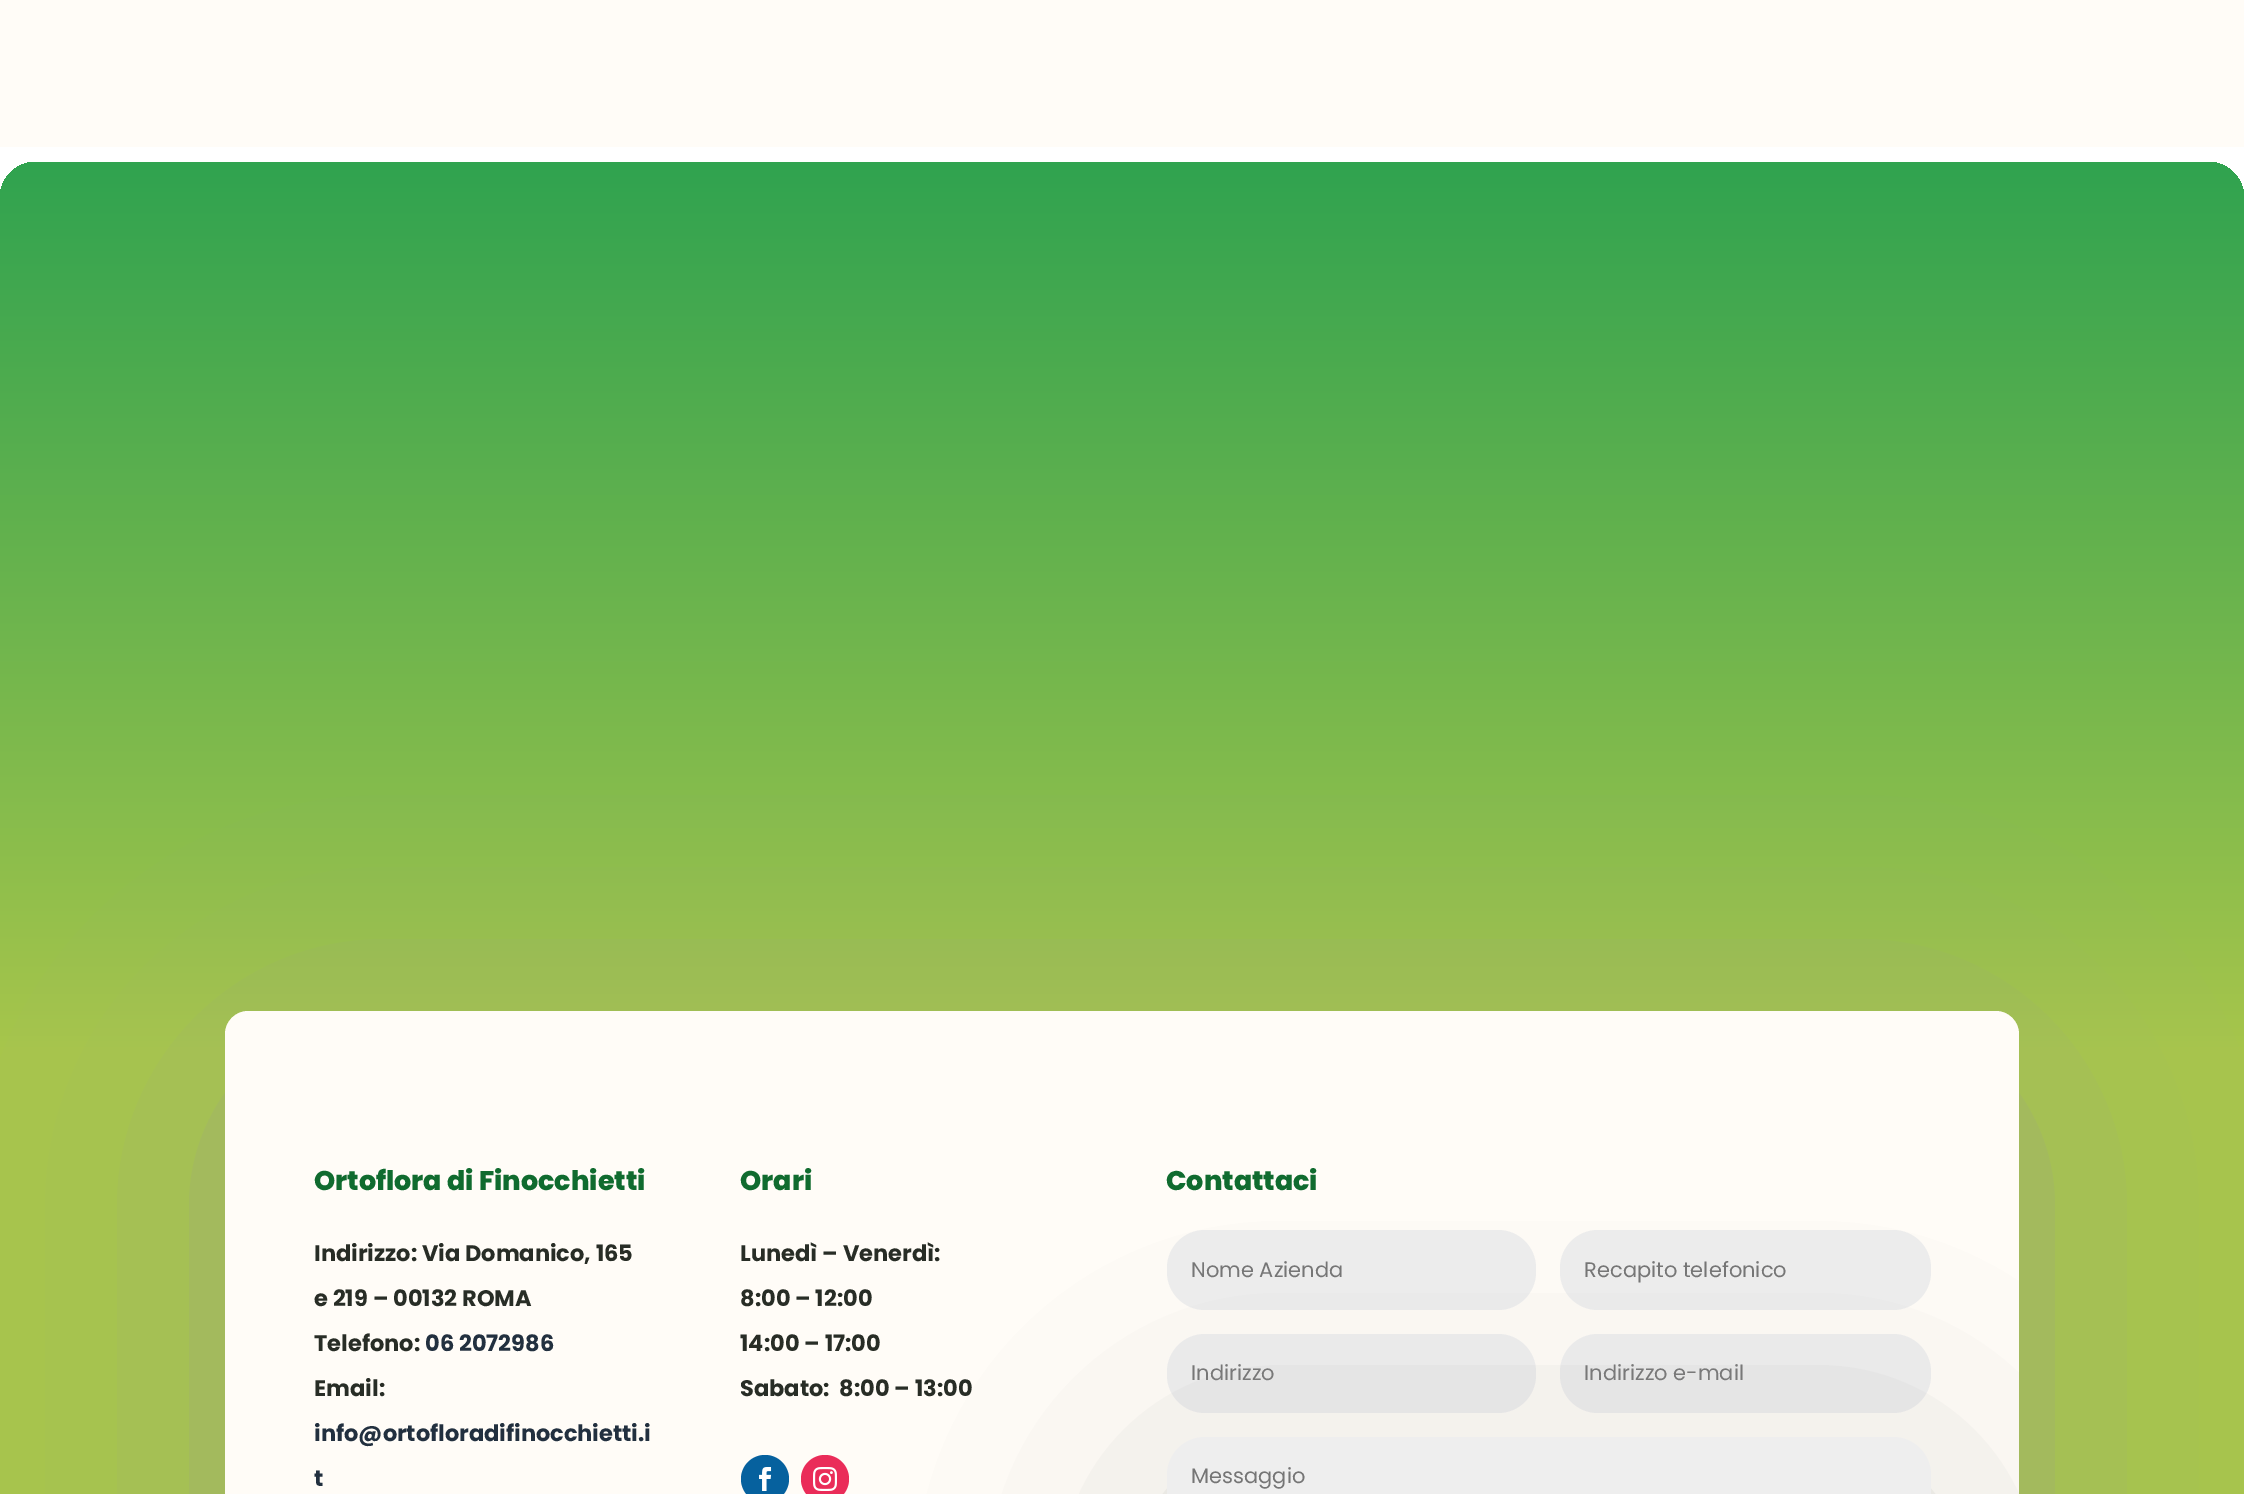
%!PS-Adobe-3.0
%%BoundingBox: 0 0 2244 1494
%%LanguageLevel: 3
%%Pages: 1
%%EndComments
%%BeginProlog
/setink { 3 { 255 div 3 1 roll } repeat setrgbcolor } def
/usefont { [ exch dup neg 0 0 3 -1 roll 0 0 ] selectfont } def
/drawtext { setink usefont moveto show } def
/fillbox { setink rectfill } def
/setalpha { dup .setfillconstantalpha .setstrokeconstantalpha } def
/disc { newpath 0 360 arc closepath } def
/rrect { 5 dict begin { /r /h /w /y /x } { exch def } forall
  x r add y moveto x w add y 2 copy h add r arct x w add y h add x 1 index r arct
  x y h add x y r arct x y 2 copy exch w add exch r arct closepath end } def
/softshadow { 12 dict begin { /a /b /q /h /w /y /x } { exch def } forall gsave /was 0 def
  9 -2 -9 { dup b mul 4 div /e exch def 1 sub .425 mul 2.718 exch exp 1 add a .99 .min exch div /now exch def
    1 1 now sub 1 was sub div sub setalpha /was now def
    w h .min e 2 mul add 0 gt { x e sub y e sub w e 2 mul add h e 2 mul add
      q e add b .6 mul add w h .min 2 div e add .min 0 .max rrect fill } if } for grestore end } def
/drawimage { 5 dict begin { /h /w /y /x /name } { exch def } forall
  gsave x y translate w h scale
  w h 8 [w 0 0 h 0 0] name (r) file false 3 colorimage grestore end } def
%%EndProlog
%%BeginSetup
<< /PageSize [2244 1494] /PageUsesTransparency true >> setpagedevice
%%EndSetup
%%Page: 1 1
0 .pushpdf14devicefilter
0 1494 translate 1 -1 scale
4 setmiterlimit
0 0 2244 1494 255 255 255 fillbox
0 0 2244 147 255 252 247 fillbox
gsave 0 162 2244 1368 36 rrect clip newpath
<< /ShadingType 2 /ColorSpace /DeviceRGB /Coords [1122 162 1122 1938] /Extend [true true] /Function << /FunctionType 3 /Domain [0 1] /Functions [<< /FunctionType 2 /Domain [0 1] /C0 [0.188 0.639 0.314] /C1 [0.655 0.773 0.294] /N 1 >> << /FunctionType 2 /Domain [0 1] /C0 [0.655 0.773 0.294] /C1 [0.655 0.773 0.294] /N 1 >>] /Bounds [0.5] /Encode [0 1 0 1] >> >> shfill grestore
149 149 151 setink
297 1119 1650 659 0 144 0.8 softshadow
255 252 247 setink
248 1011 moveto 1996 1011 lineto 2008.5 1011 2019 1021.5 2019 1034 curveto 2019 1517 lineto 225 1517 lineto 225 1034 lineto 225 1021.5 235.5 1011 248 1011 curveto closepath fill
(Ortoflora di Finocchietti) 314 1190 /Poppins-ExtraBold 27 16 107 47 drawtext
(Indirizzo: Via Domanico, 165) 314 1261 /Poppins-Bold 22.5 40 45 38 drawtext
(e 219 – 00132 ROMA) 314 1306 /Poppins-Bold 22.5 40 45 38 drawtext
(Telefono:) 314 1351 /Poppins-Bold 22.5 40 45 38 drawtext
(06 2072986) 425 1351 /Poppins-Bold 22.5 34 48 63 drawtext
(Email:) 314 1396 /Poppins-Bold 22.5 40 45 38 drawtext
(info@ortofloradifinocchietti.i) 314 1441 /Poppins-Bold 22.5 34 48 63 drawtext
(t) 314 1486 /Poppins-Bold 22.5 34 48 63 drawtext
(Orari) 740 1190 /Poppins-ExtraBold 27 16 107 47 drawtext
(Lunedì – Venerdì:) 740 1261 /Poppins-Bold 22.5 40 45 38 drawtext
(8:00 – 12:00) 740 1306 /Poppins-Bold 22.5 40 45 38 drawtext
(14:00 – 17:00) 740 1351 /Poppins-Bold 22.5 40 45 38 drawtext
(Sabato:  8:00 – 13:00) 740 1396 /Poppins-Bold 22.5 40 45 38 drawtext
6 97 158 setink
765 1479 24 disc fill
(assets/img1.rgb) 759 1467 13 24 drawimage
234 44 89 setink
825 1479 24 disc fill
(assets/img2.rgb) 813 1467 24 24 drawimage
(Contattaci) 1166 1190 /Poppins-ExtraBold 27 16 107 47 drawtext
238 238 238 setink
1167 1230 369 80 38 rrect fill
(Nome Azienda) 1191 1277 /Poppins-Regular 21 117 117 117 drawtext
238 238 238 setink
1560 1230 371 80 38 rrect fill
(Recapito telefonico) 1584 1277 /Poppins-Regular 21 117 117 117 drawtext
238 238 238 setink
1167 1334 369 79 38 rrect fill
(Indirizzo) 1191 1380 /Poppins-Regular 21 117 117 117 drawtext
238 238 238 setink
1560 1334 371 79 38 rrect fill
(Indirizzo e-mail) 1584 1380 /Poppins-Regular 21 117 117 117 drawtext
gsave
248 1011 moveto 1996 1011 lineto 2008.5 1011 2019 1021.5 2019 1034 curveto 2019 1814 lineto 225 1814 lineto 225 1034 lineto 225 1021.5 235.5 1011 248 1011 curveto closepath clip newpath
149 149 151 setink
1239 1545 620 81 0 144 0.64 softshadow
grestore
238 238 238 setink
1167 1437 764 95 38 rrect fill
(Messaggio) 1191 1483 /Poppins-Regular 21 117 117 117 drawtext
.poppdf14devicefilter showpage
%%EOF
